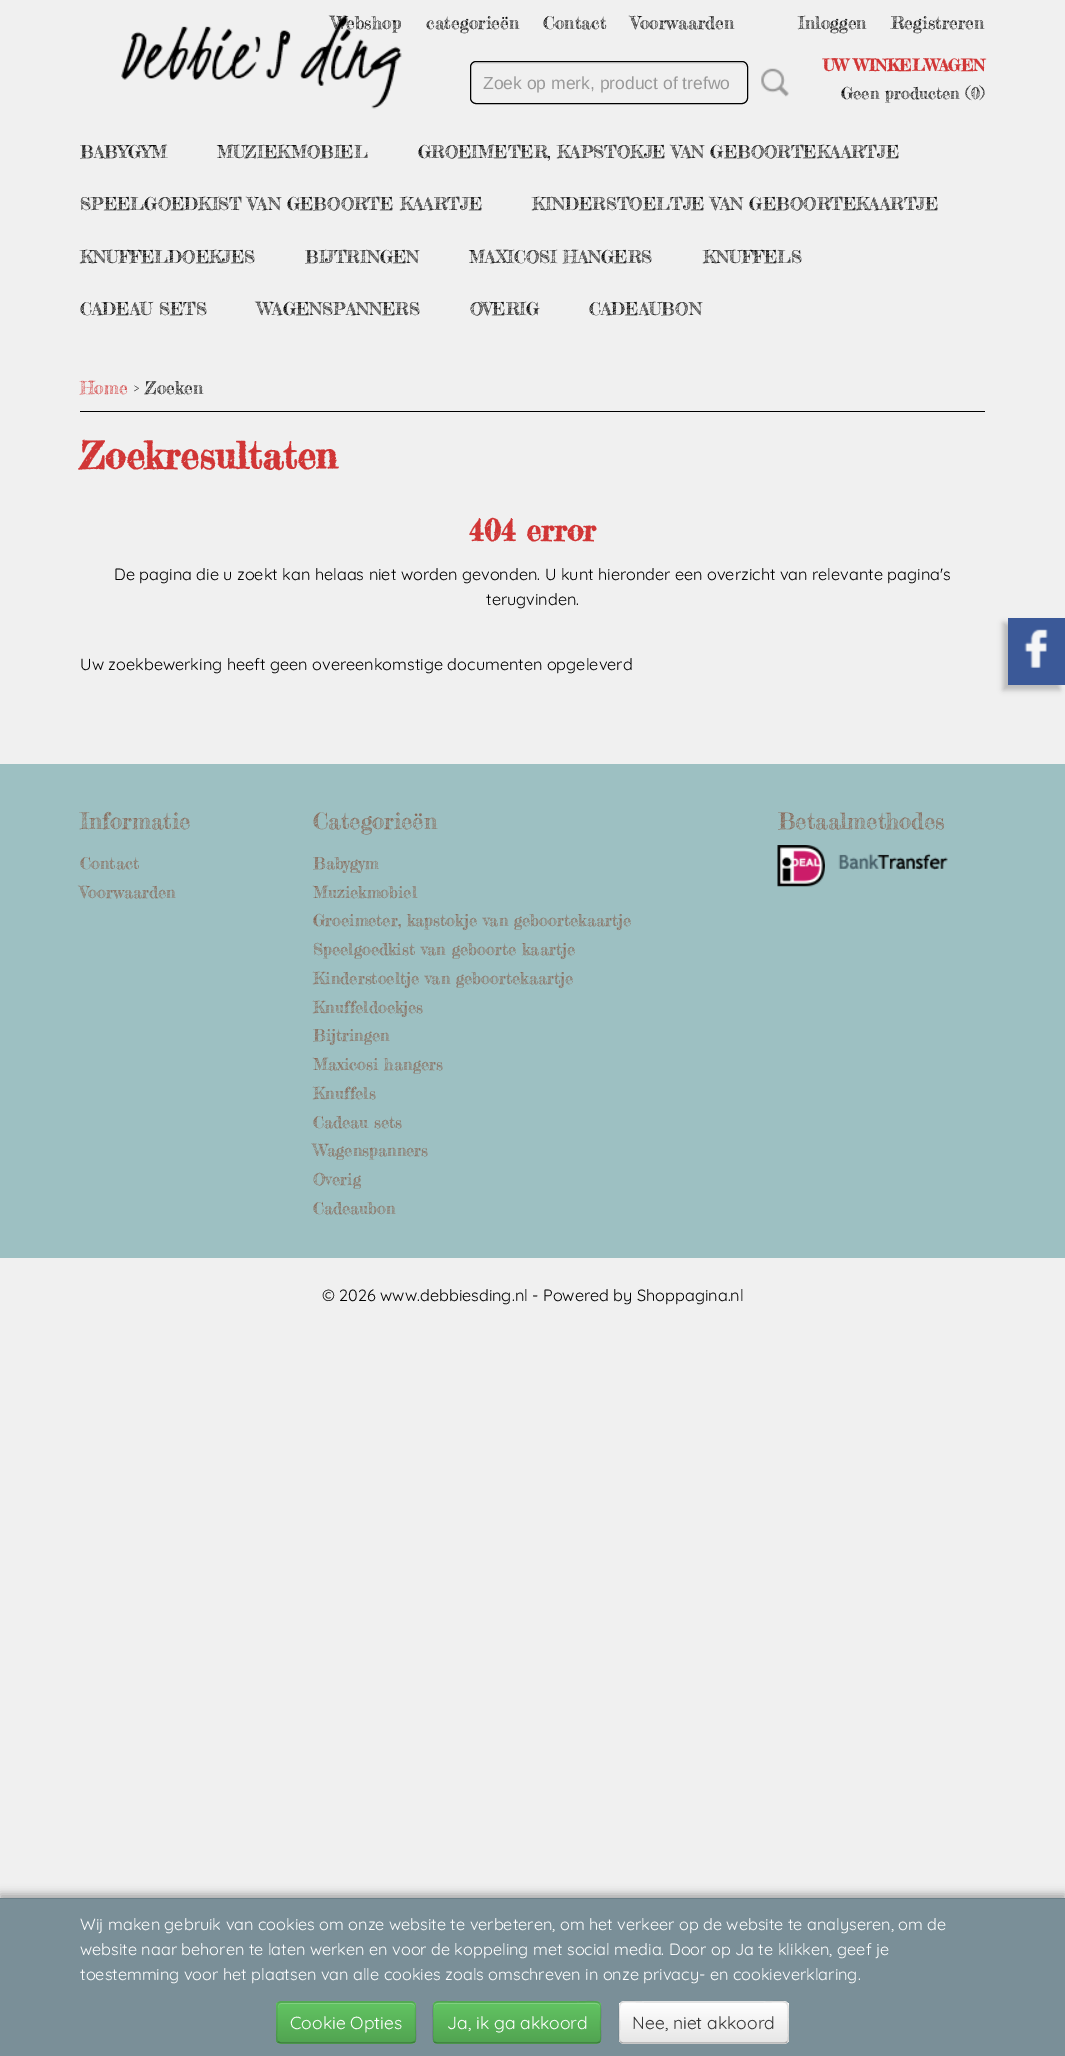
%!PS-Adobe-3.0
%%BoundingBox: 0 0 1065 2056
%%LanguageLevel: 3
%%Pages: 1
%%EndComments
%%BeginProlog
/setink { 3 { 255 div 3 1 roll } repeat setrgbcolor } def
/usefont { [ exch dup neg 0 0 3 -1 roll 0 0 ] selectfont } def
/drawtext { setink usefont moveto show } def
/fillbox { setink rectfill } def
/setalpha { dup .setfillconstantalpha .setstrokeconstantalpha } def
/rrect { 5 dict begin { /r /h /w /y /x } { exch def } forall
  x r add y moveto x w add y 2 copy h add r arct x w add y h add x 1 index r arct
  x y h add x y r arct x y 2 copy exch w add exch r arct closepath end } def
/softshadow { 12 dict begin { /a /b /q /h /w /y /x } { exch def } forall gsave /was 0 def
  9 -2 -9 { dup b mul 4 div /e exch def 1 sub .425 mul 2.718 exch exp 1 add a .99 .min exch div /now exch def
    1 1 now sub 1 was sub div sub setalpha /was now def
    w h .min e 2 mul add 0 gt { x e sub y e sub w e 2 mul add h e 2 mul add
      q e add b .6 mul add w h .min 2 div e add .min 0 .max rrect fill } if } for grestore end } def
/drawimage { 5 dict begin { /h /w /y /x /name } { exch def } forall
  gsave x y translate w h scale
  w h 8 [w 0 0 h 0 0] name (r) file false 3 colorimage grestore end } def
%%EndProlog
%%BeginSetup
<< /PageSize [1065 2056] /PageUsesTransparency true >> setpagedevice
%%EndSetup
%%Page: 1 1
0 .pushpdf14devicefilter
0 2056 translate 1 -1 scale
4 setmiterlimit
0 0 1065 2056 240 240 240 fillbox
(assets/img1.rgb) 121 16 281 93 drawimage
(Webshop) 331 29 /FrederickatheGreat-Regular 17.5 0 0 0 drawtext
(categorieën) 426 29 /FrederickatheGreat-Regular 17.5 0 0 0 drawtext
(Contact) 543 29 /FrederickatheGreat-Regular 17.5 0 0 0 drawtext
(Voorwaarden) 631 29 /FrederickatheGreat-Regular 17.5 0 0 0 drawtext
(Inloggen) 798 29 /FrederickatheGreat-Regular 17.5 0 0 0 drawtext
(Registreren) 891 29 /FrederickatheGreat-Regular 17.5 0 0 0 drawtext
(UW WINKELWAGEN) 823 71 /FrederickatheGreat-Bold 16.25 209 54 54 drawtext
(Geen producten \(0\)) 841 99 /FrederickatheGreat-Regular 16.25 0 0 0 drawtext
222 222 222 setink
476 64 moveto 741 64 lineto 744 64 746 66 746 69 curveto 746 66 744 63 741 63 curveto 476 63 lineto 473 63 471 66 471 69 curveto 471 66 473 64 476 64 curveto closepath fill
0 0 0 setink
470.5 61.5 277 42 5.5 rrect stroke
(Zoek op merk, product of trefwo) 483 89 /LiberationSans-Regular 17.5 153 153 153 drawtext
(assets/img2.rgb) 761 68 28 29 drawimage
(BABYGYM) 80 158 /FrederickatheGreat-Regular 17.5 0 0 0 drawtext
(MUZIEKMOBIEL) 217 158 /FrederickatheGreat-Regular 17.5 0 0 0 drawtext
(GROEIMETER, KAPSTOKJE VAN GEBOORTEKAARTJE) 418 158 /FrederickatheGreat-Regular 17.5 0 0 0 drawtext
(SPEELGOEDKIST VAN GEBOORTE KAARTJE) 80 210 /FrederickatheGreat-Regular 17.5 0 0 0 drawtext
(KINDERSTOELTJE VAN GEBOORTEKAARTJE) 532 210 /FrederickatheGreat-Regular 17.5 0 0 0 drawtext
(KNUFFELDOEKJES) 80 263 /FrederickatheGreat-Regular 17.5 0 0 0 drawtext
(BIJTRINGEN) 305 263 /FrederickatheGreat-Regular 17.5 0 0 0 drawtext
(MAXICOSI HANGERS) 469 263 /FrederickatheGreat-Regular 17.5 0 0 0 drawtext
(KNUFFELS) 703 263 /FrederickatheGreat-Regular 17.5 0 0 0 drawtext
(CADEAU SETS) 80 315 /FrederickatheGreat-Regular 17.5 0 0 0 drawtext
(WAGENSPANNERS) 257 315 /FrederickatheGreat-Regular 17.5 0 0 0 drawtext
(OVERIG) 470 315 /FrederickatheGreat-Regular 17.5 0 0 0 drawtext
(CADEAUBON) 589 315 /FrederickatheGreat-Regular 17.5 0 0 0 drawtext
80 411 905 1 0 0 0 fillbox
(Home) 80 394 /FrederickatheGreat-Regular 17.5 209 54 54 drawtext
(> Zoeken) 134 394 /FrederickatheGreat-Regular 17.5 0 0 0 drawtext
(Zoekresultaten) 80 469 /FrederickatheGreat-Bold 37.5 209 54 54 drawtext
(404 error) 469 541 /FrederickatheGreat-Bold 30 209 54 54 drawtext
(De pagina die u zoekt kan helaas niet worden gevonden. U kunt hieronder een overzicht van relevante pagina's) 114 580 /Quicksand-Regular 16.25 0 0 0 drawtext
(terugvinden.) 486 605 /Quicksand-Regular 16.25 0 0 0 drawtext
(Uw zoekbewerking heeft geen overeenkomstige documenten opgeleverd) 80 670 /Quicksand-Regular 16.25 0 0 0 drawtext
50 50 50 setink
1003 623 57 67 0 3 0.3 softshadow
1008 618 57 67 59 89 152 fillbox
(assets/img3.rgb) 1024 629 24 39 drawimage
0 764 1065 494 157 192 194 fillbox
(Informatie) 80 829 /FrederickatheGreat-Regular 22.5 135 102 85 drawtext
(Contact) 80 869 /FrederickatheGreat-Regular 16.25 135 102 85 drawtext
(Voorwaarden) 80 898 /FrederickatheGreat-Regular 16.25 135 102 85 drawtext
(Categorieën) 313 829 /FrederickatheGreat-Regular 22.5 135 102 85 drawtext
(Babygym) 313 869 /FrederickatheGreat-Regular 16.25 135 102 85 drawtext
(Muziekmobiel) 313 898 /FrederickatheGreat-Regular 16.25 135 102 85 drawtext
(Groeimeter, kapstokje van geboortekaartje) 313 926 /FrederickatheGreat-Regular 16.25 135 102 85 drawtext
(Speelgoedkist van geboorte kaartje) 313 955 /FrederickatheGreat-Regular 16.25 135 102 85 drawtext
(Kinderstoeltje van geboortekaartje) 313 984 /FrederickatheGreat-Regular 16.25 135 102 85 drawtext
(Knuffeldoekjes) 313 1013 /FrederickatheGreat-Regular 16.25 135 102 85 drawtext
(Bijtringen) 313 1041 /FrederickatheGreat-Regular 16.25 135 102 85 drawtext
(Maxicosi hangers) 313 1070 /FrederickatheGreat-Regular 16.25 135 102 85 drawtext
(Knuffels) 313 1099 /FrederickatheGreat-Regular 16.25 135 102 85 drawtext
(Cadeau sets) 313 1128 /FrederickatheGreat-Regular 16.25 135 102 85 drawtext
(Wagenspanners) 313 1156 /FrederickatheGreat-Regular 16.25 135 102 85 drawtext
(Overig) 313 1185 /FrederickatheGreat-Regular 16.25 135 102 85 drawtext
(Cadeaubon) 313 1214 /FrederickatheGreat-Regular 16.25 135 102 85 drawtext
(Betaalmethodes) 778 829 /FrederickatheGreat-Regular 22.5 135 102 85 drawtext
(assets/img4.rgb) 777 845 48 42 drawimage
(assets/img5.rgb) 838 853 110 17 drawimage
(© 2026 www.debbiesding.nl - Powered by Shoppagina.nl) 322 1301 /Quicksand-Regular 16.25 0 0 0 drawtext
0 1894 1065 159 0 4.5 0.3 softshadow
0 1899 1065 157 122 143 152 fillbox
0 1898 1065 1 105 126 135 fillbox
(Wij maken gebruik van cookies om onze website te verbeteren, om het verkeer op de website te analyseren, om de) 80 1930 /Quicksand-Regular 16.25 255 255 255 drawtext
(website naar behoren te laten werken en voor de koppeling met social media. Door op Ja te klikken, geef je) 80 1955 /Quicksand-Regular 16.25 255 255 255 drawtext
(toestemming voor het plaatsen van alle cookies zoals omschreven in onze privacy- en cookieverklaring.) 80 1980 /Quicksand-Regular 16.25 255 255 255 drawtext
91 183 91 setink
276 2001 140 43 5 rrect fill
gsave
276 2001 140 43 5 rrect clip newpath
gsave 276 2003 moveto 416 2003 lineto 416 2043 lineto 276 2043 lineto closepath clip newpath
<< /ShadingType 2 /ColorSpace /DeviceRGB /Coords [346 2003 346 2043] /Extend [true true] /Function << /FunctionType 2 /Domain [0 1] /C0 [0.384 0.769 0.384] /C1 [0.318 0.639 0.318] /N 1 >> >> shfill grestore
grestore
129 208 129 setink
281 2004 moveto 411 2004 lineto 413 2004 415 2005 415 2008 curveto 415 2007 lineto 415 2005 413 2003 411 2003 curveto 282 2003 lineto 280 2003 278 2005 278 2007 curveto 278 2008 lineto 278 2005 279 2004 281 2004 curveto closepath fill
0.25 setalpha
0 0 0 setink
1.2 setlinewidth
414.5 2042 moveto 411 2043 lineto 281 2043 lineto 278 2042 lineto stroke
0.1 setalpha
278 2042 moveto 275.5 2039 277 2031 277 2028 curveto 277 2011.5 lineto 277 2008.5 276 2002 281 2002 curveto 411 2002 lineto 416.5 2002 415.5 2008.5 415.5 2011.5 curveto 415.5 2028 lineto 415.5 2031 417 2039 414.5 2042 curveto stroke
1 setalpha
(Cookie Opties) 290 2029 /Quicksand-Regular 17.5 255 255 255 drawtext
91 183 91 setink
433 2001 168 43 5 rrect fill
gsave
433 2001 168 43 5 rrect clip newpath
gsave 433 2003 moveto 601 2003 lineto 601 2043 lineto 433 2043 lineto closepath clip newpath
<< /ShadingType 2 /ColorSpace /DeviceRGB /Coords [517 2003 517 2043] /Extend [true true] /Function << /FunctionType 2 /Domain [0 1] /C0 [0.384 0.769 0.384] /C1 [0.318 0.639 0.318] /N 1 >> >> shfill grestore
grestore
129 208 129 setink
438 2004 moveto 596 2004 lineto 598 2004 600 2005 600 2008 curveto 600 2007 lineto 600 2005 598 2003 596 2003 curveto 438 2003 lineto 436 2003 434 2005 434 2007 curveto 434 2008 lineto 434 2005 435 2004 438 2004 curveto closepath fill
0.25 setalpha
0 0 0 setink
599.5 2042 moveto 598.5 2042.5 597.5 2043 596 2043 curveto 437.5 2043 lineto 436.5 2043 435 2042.5 434.5 2042 curveto stroke
0.1 setalpha
434.5 2042 moveto 431.5 2039 433 2031 433 2028 curveto 433 1995.5 428 2002 464 2002 curveto 570 2002 lineto 606 2002 600.5 1995.5 600.5 2028 curveto 600.5 2031 602 2039 599.5 2042 curveto stroke
1 setalpha
(Ja, ik ga akkoord) 447 2029 /Quicksand-Regular 17.5 255 255 255 drawtext
245 245 245 setink
619 2001 170 43 5 rrect fill
gsave
619 2001 170 43 5 rrect clip newpath
gsave 619 2003 moveto 789 2003 lineto 789 2043 lineto 619 2043 lineto closepath clip newpath
<< /ShadingType 2 /ColorSpace /DeviceRGB /Coords [704 2003 704 2043] /Extend [true true] /Function << /FunctionType 2 /Domain [0 1] /C0 [1 1 1] /C1 [0.902 0.902 0.902] /N 1 >> >> shfill grestore
grestore
0.25 setalpha
0 0 0 setink
787 2042 moveto 786 2042.5 785 2043 784 2043 curveto 624 2043 lineto 622.5 2043 621.5 2042.5 620.5 2042 curveto stroke
0.1 setalpha
620.5 2042 moveto 618 2039 619.5 2031 619.5 2028 curveto 619.5 1995 614 2002 650.5 2002 curveto 757 2002 lineto 793.5 2002 788 1995 788 2028 curveto 788 2031 789.5 2039 787 2042 curveto stroke
1 setalpha
(Nee, niet akkoord) 632 2029 /Quicksand-Regular 17.5 51 51 51 drawtext
.poppdf14devicefilter showpage
%%EOF
